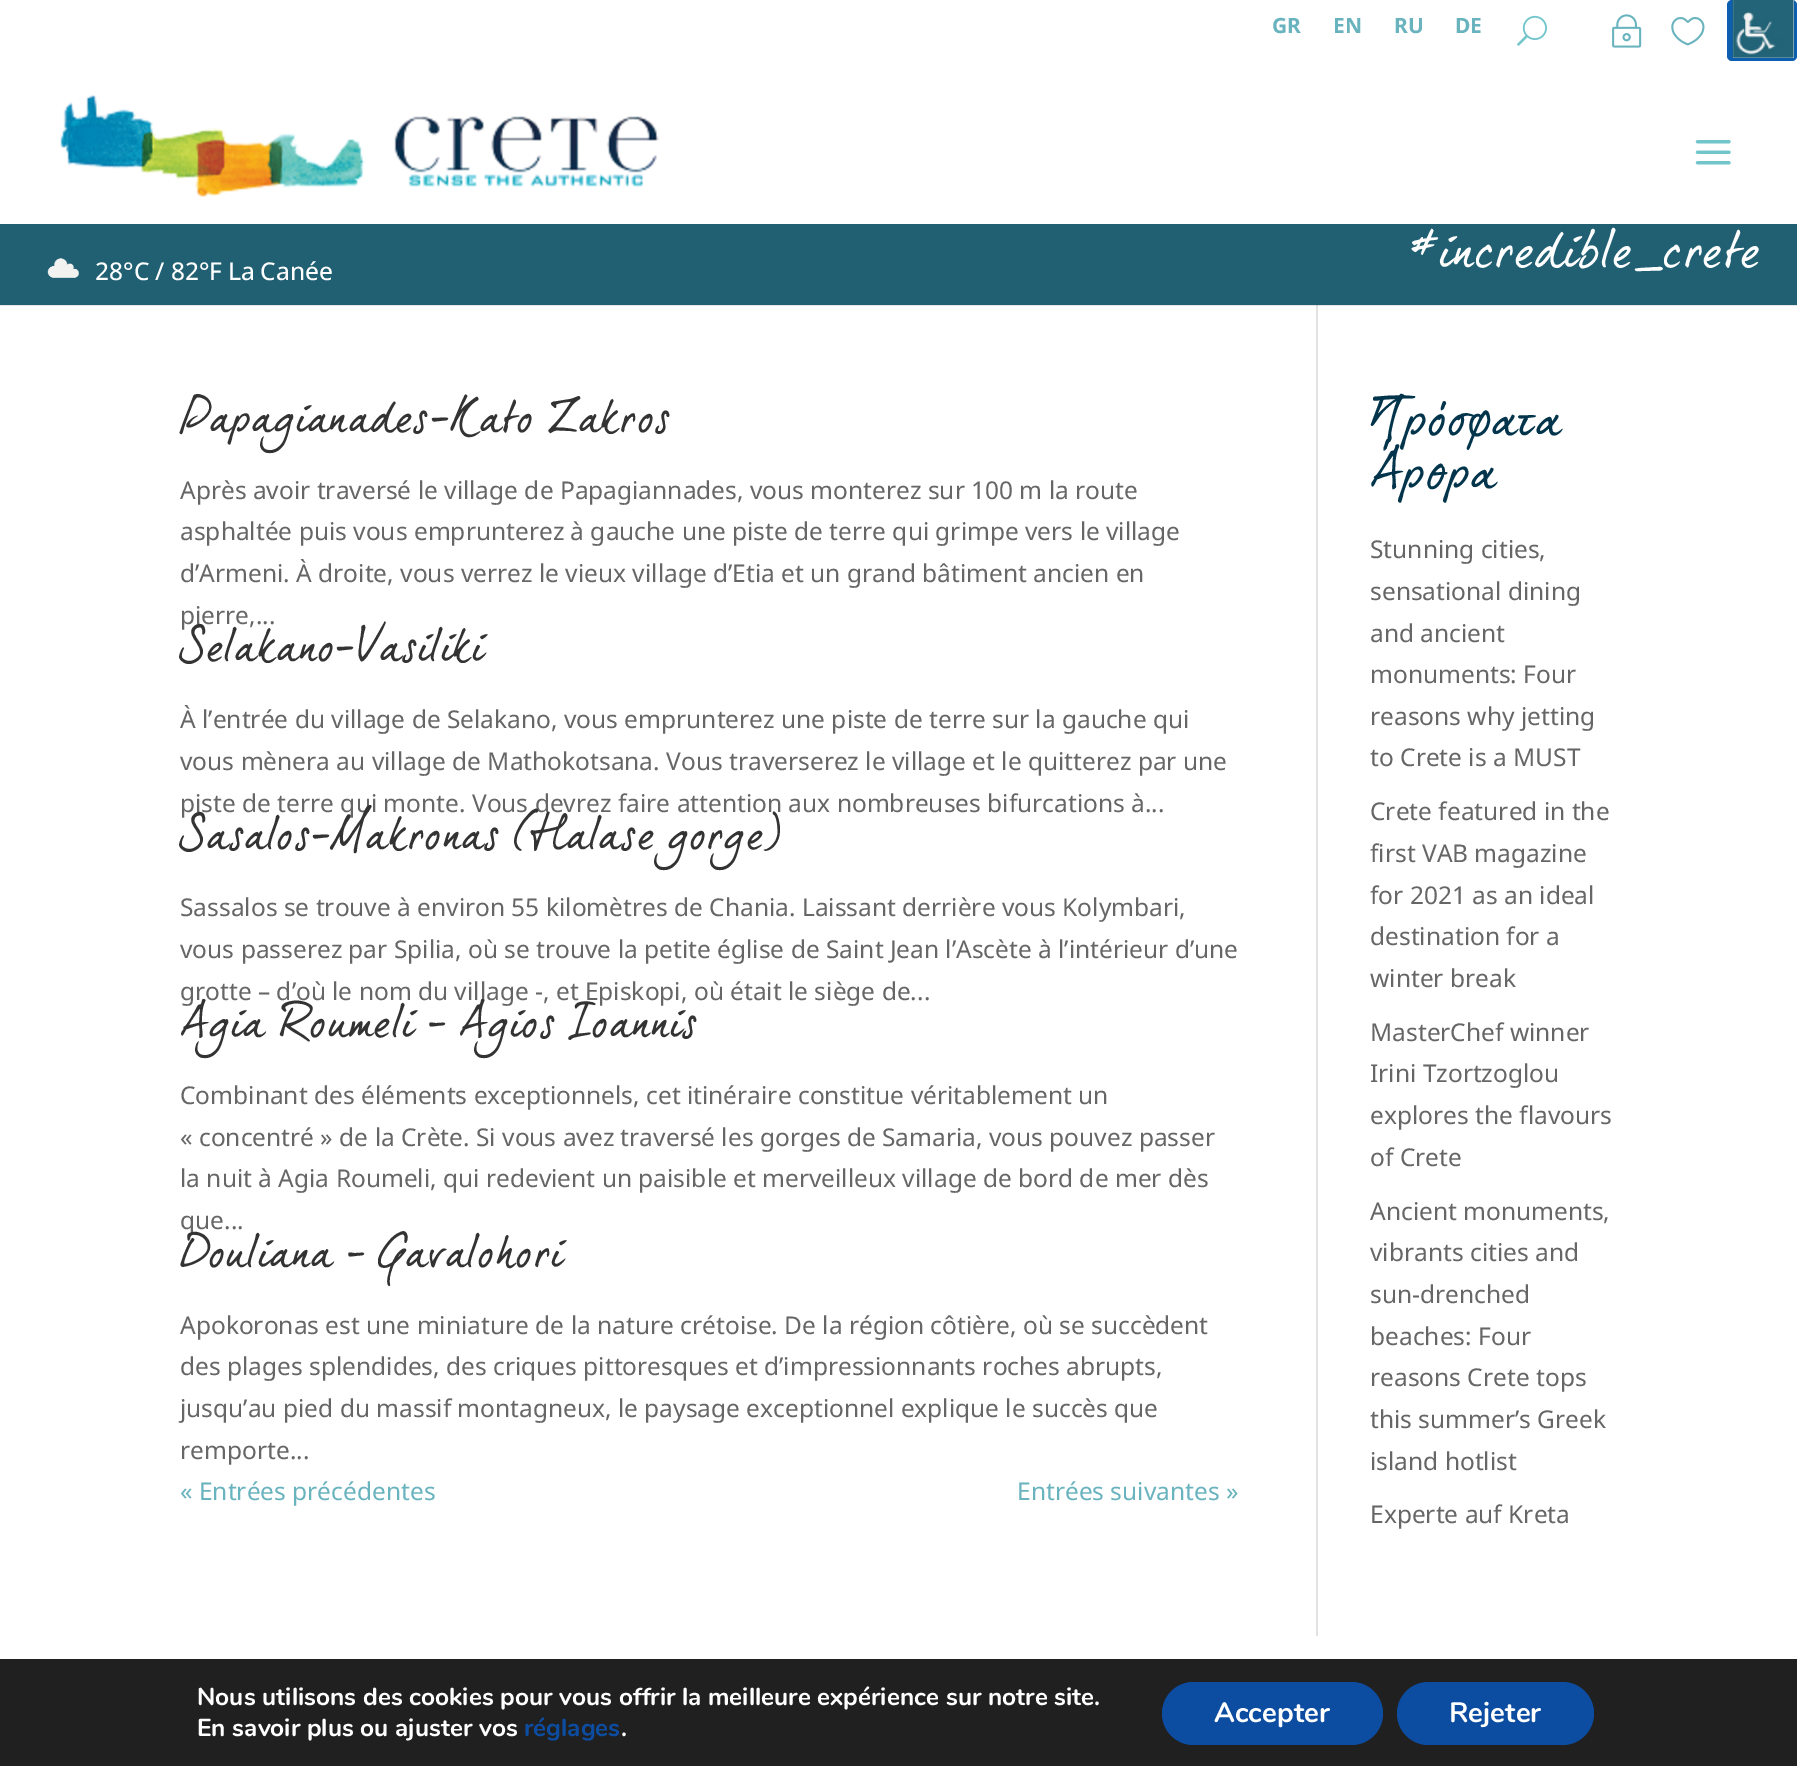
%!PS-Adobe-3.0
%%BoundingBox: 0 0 1797 1766
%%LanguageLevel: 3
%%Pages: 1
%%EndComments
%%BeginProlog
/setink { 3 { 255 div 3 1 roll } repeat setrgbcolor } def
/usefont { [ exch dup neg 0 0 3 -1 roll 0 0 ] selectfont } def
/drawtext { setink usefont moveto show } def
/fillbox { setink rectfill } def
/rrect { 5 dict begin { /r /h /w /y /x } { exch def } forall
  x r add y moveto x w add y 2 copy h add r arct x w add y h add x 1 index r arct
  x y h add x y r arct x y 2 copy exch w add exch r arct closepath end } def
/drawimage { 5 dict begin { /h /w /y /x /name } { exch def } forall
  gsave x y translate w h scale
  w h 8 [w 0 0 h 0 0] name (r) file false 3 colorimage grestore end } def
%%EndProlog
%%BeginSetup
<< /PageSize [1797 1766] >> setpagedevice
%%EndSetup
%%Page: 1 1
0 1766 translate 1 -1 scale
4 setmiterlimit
0 0 1797 1766 255 255 255 fillbox
0 305 1797 1 230 230 230 fillbox
(GR) 1272 33 /NotoSans-Bold 21 105 179 190 drawtext
(EN) 1333 33 /NotoSans-Bold 21 105 179 190 drawtext
(RU) 1394 33 /NotoSans-Bold 21 105 179 190 drawtext
(DE) 1455 33 /NotoSans-Bold 21 105 179 190 drawtext
(assets/img1.rgb) 1517 15 30 31 drawimage
(assets/img2.rgb) 1612 14 30 34 drawimage
(assets/img3.rgb) 1671 17 34 29 drawimage
(assets/img4.rgb) 60 95 599 105 drawimage
(assets/img5.rgb) 1695 140 36 25 drawimage
0 224 1797 81 33 96 115 fillbox
(assets/img6.rgb) 47 258 32 20 drawimage
(28°C / 82°F) 95 280 /OpenSans-Medium 24.5 255 255 255 drawtext
228 280 moveto -1 0 32 (La Canée) widthshow
(#incredible_crete) 1408 266 /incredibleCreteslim-Regular 52.5 255 255 255 drawtext
1316 305 2 1331 226 226 226 fillbox
1316 305 2 1 203 203 203 fillbox
(Papagianades-Kato Zakros) 180 431 /incredibleCreteslim-Regular 45.5 51 51 51 drawtext
(Après avoir traversé le village de Papagiannades, vous monterez sur 100 m la route) 180 499 /NotoSans-Regular 24.5 102 102 102 drawtext
(asphaltée puis vous emprunterez à gauche une piste de terre qui grimpe vers le village) 180 540 /NotoSans-Regular 24.5 102 102 102 drawtext
(d’Armeni. À droite, vous verrez le vieux village d’Etia et un grand bâtiment ancien en) 180 582 /NotoSans-Regular 24.5 102 102 102 drawtext
(pierre,...) 180 624 /NotoSans-Regular 24.5 102 102 102 drawtext
(Selakano-Vasiliki) 180 660 /incredibleCreteslim-Regular 45.5 51 51 51 drawtext
(À l’entrée du village de Selakano, vous emprunterez une piste de terre sur la gauche qui) 180 728 /NotoSans-Regular 24.5 102 102 102 drawtext
(vous mènera au village de Mathokotsana. Vous traverserez le village et le quitterez par une) 180 770 /NotoSans-Regular 24.5 102 102 102 drawtext
(piste de terre qui monte. Vous devrez faire attention aux nombreuses bifurcations à...) 180 812 /NotoSans-Regular 24.5 102 102 102 drawtext
(Sasalos-Makronas \(Halase gorge\)) 180 848 /incredibleCreteslim-Regular 45.5 51 51 51 drawtext
(Sassalos se trouve à environ 55 kilomètres de Chania. Laissant derrière vous Kolymbari,) 180 916 /NotoSans-Regular 24.5 102 102 102 drawtext
(vous passerez par Spilia, où se trouve la petite église de Saint Jean l’Ascète à l’intérieur d’une) 180 958 /NotoSans-Regular 24.5 102 102 102 drawtext
(grotte – d’où le nom du village -, et Episkopi, où était le siège de...) 180 1000 /NotoSans-Regular 24.5 102 102 102 drawtext
(Agia Roumeli – Agios Ioannis) 180 1036 /incredibleCreteslim-Regular 45.5 51 51 51 drawtext
(Combinant des éléments exceptionnels, cet itinéraire constitue véritablement un) 180 1104 /NotoSans-Regular 24.5 102 102 102 drawtext
(« concentré » de la Crète. Si vous avez traversé les gorges de Samaria, vous pouvez passer) 180 1146 /NotoSans-Regular 24.5 102 102 102 drawtext
(la nuit à Agia Roumeli, qui redevient un paisible et merveilleux village de bord de mer dès) 180 1187 /NotoSans-Regular 24.5 102 102 102 drawtext
(que...) 180 1229 /NotoSans-Regular 24.5 102 102 102 drawtext
(Douliana – Gavalohori) 180 1266 /incredibleCreteslim-Regular 45.5 51 51 51 drawtext
(Apokoronas est une miniature de la nature crétoise. De la région côtière, où se succèdent) 180 1334 /NotoSans-Regular 24.5 102 102 102 drawtext
(des plages splendides, des criques pittoresques et d’impressionnants roches abrupts,) 180 1375 /NotoSans-Regular 24.5 102 102 102 drawtext
(jusqu’au pied du massif montagneux, le paysage exceptionnel explique le succès que) 180 1417 /NotoSans-Regular 24.5 102 102 102 drawtext
(remporte...) 180 1459 /NotoSans-Regular 24.5 102 102 102 drawtext
(« Entrées précédentes) 180 1500 /NotoSans-Regular 24.5 105 179 190 drawtext
(Entrées suivantes ») 1017 1500 /NotoSans-Regular 24.5 105 179 190 drawtext
(Πρόσφατα) 1370 434 /incredibleCreteslim-Regular 52.5 2 53 75 drawtext
(Άρθρα) 1370 487 /incredibleCreteslim-Regular 52.5 2 53 75 drawtext
(Stunning cities,) 1370 558 /NotoSans-Regular 24.5 102 102 102 drawtext
(sensational dining) 1370 600 /NotoSans-Regular 24.5 102 102 102 drawtext
(and ancient) 1370 642 /NotoSans-Regular 24.5 102 102 102 drawtext
(monuments: Four) 1370 683 /NotoSans-Regular 24.5 102 102 102 drawtext
(reasons why jetting) 1370 725 /NotoSans-Regular 24.5 102 102 102 drawtext
(to Crete is a MUST) 1370 766 /NotoSans-Regular 24.5 102 102 102 drawtext
(Crete featured in the) 1370 820 /NotoSans-Regular 24.5 102 102 102 drawtext
(first VAB magazine) 1370 862 /NotoSans-Regular 24.5 102 102 102 drawtext
(for 2021 as an ideal) 1370 904 /NotoSans-Regular 24.5 102 102 102 drawtext
(destination for a) 1370 945 /NotoSans-Regular 24.5 102 102 102 drawtext
(winter break) 1370 987 /NotoSans-Regular 24.5 102 102 102 drawtext
(MasterChef winner) 1370 1041 /NotoSans-Regular 24.5 102 102 102 drawtext
(Irini Tzortzoglou) 1370 1082 /NotoSans-Regular 24.5 102 102 102 drawtext
(explores the flavours) 1370 1124 /NotoSans-Regular 24.5 102 102 102 drawtext
(of Crete) 1370 1166 /NotoSans-Regular 24.5 102 102 102 drawtext
(Ancient monuments,) 1370 1220 /NotoSans-Regular 24.5 102 102 102 drawtext
(vibrants cities and) 1370 1261 /NotoSans-Regular 24.5 102 102 102 drawtext
(sun-drenched) 1370 1303 /NotoSans-Regular 24.5 102 102 102 drawtext
(beaches: Four) 1370 1345 /NotoSans-Regular 24.5 102 102 102 drawtext
(reasons Crete tops) 1370 1386 /NotoSans-Regular 24.5 102 102 102 drawtext
(this summer’s Greek) 1370 1428 /NotoSans-Regular 24.5 102 102 102 drawtext
(island hotlist) 1370 1470 /NotoSans-Regular 24.5 102 102 102 drawtext
(Experte auf Kreta) 1370 1523 /NotoSans-Regular 24.5 102 102 102 drawtext
13 94 175 setink
1727 0 70 61 5 rrect fill
1733 0 61 58 255 255 255 fillbox
(assets/img7.rgb) 1732 0 62 58 drawimage
0 1659 1797 107 32 32 32 fillbox
(Nous utilisons des cookies pour vous offrir la meilleure expérience sur notre site.) 197 1705 /Nunito-Bold 24.5 255 255 255 drawtext
(En savoir plus ou ajuster vos) 197 1736 /Nunito-Bold 24.5 255 255 255 drawtext
(réglages) 524 1736 /Nunito-Bold 24.5 12 77 162 drawtext
(.) 621 1736 /Nunito-Bold 24.5 255 255 255 drawtext
12 77 162 setink
1162 1682 221 63 31.5 rrect fill
(Accepter) 1214 1722 /Nunito-Bold 28 255 255 255 drawtext
12 77 162 setink
1397 1682 197 63 31.5 rrect fill
(Rejeter) 1449 1722 /Nunito-Bold 28 255 255 255 drawtext
showpage
%%EOF
